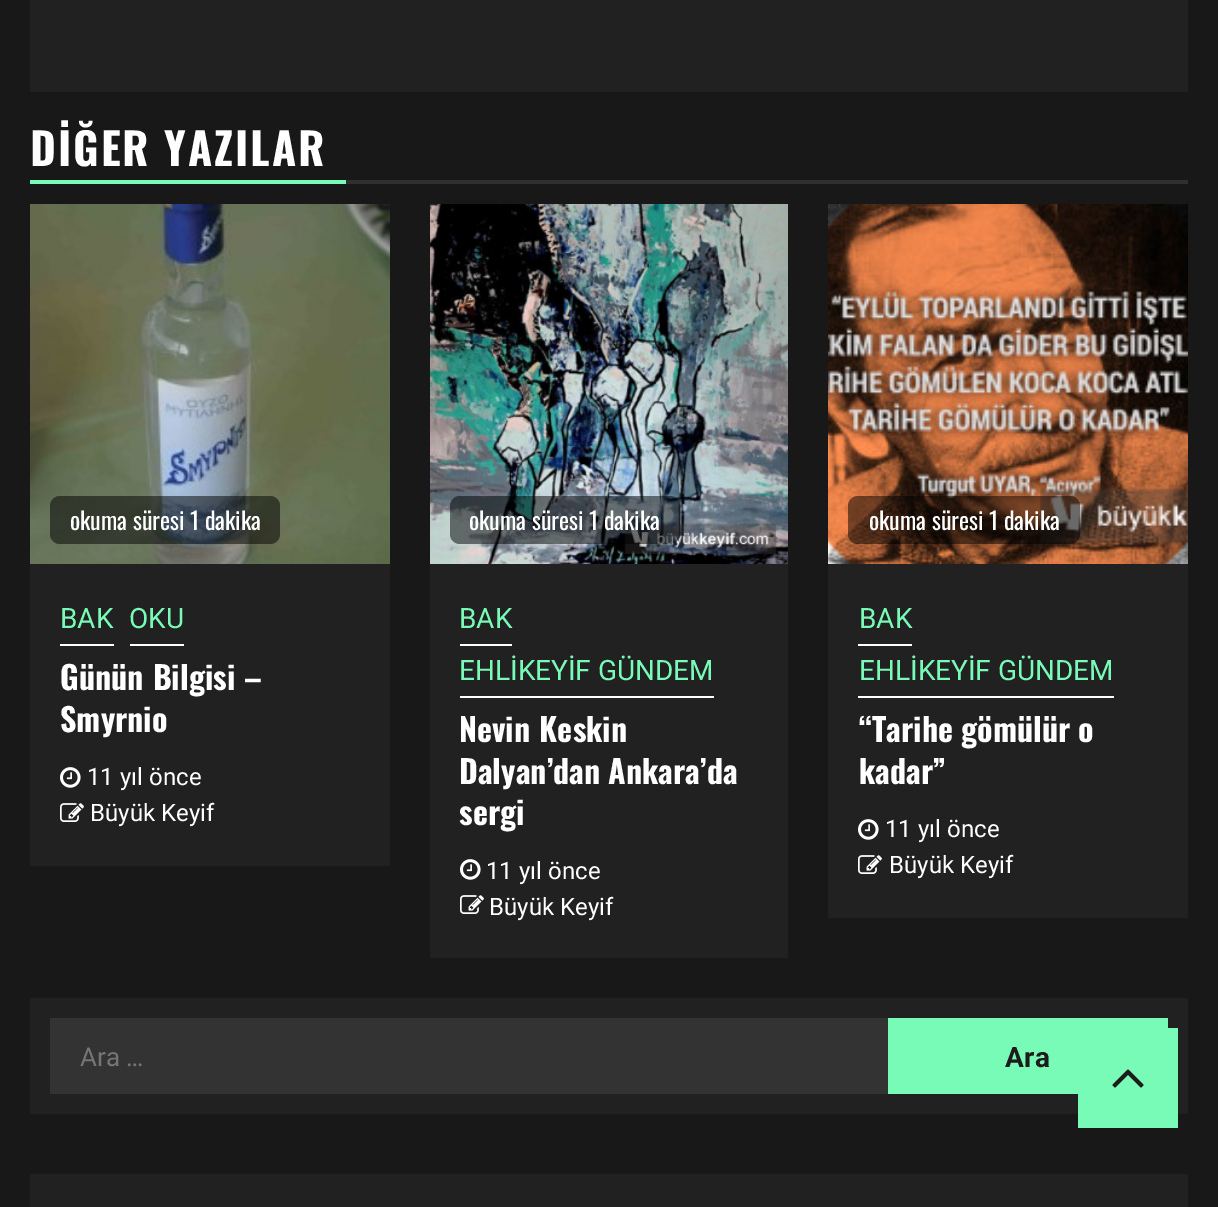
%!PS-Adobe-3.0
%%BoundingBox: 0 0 1218 1207
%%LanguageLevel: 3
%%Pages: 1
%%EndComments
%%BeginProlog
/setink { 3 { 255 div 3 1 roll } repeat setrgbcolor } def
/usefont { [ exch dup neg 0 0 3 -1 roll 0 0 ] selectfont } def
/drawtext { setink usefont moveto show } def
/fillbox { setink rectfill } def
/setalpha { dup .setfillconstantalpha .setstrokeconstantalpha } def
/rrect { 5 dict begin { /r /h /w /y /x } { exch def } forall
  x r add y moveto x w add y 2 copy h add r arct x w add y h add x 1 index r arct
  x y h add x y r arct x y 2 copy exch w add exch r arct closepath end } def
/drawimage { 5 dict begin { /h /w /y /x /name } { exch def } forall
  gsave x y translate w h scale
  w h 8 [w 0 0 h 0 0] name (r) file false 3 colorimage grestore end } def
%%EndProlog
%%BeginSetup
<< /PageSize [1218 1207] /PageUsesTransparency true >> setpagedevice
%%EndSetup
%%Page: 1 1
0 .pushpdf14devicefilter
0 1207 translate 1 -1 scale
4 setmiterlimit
0 0 1218 1207 24 24 24 fillbox
30 0 1158 92 33 33 33 fillbox
30 180 316 4 120 251 183 fillbox
/Oswald-Bold 44 usefont
255 255 255 setink
30 166 moveto 2 0 (DİĞER YAZILAR) ashow
346 180 842 4 47 47 47 fillbox
30 564 360 302 33 33 33 fillbox
(assets/img1.rgb) 30 204 360 360 drawimage
0.5 setalpha
0 0 0 setink
50 496 230 48 10 rrect fill
1 setalpha
(okuma süresi 1 dakika) 70 530 /Oswald-Regular 24 255 255 255 drawtext
60 644 54 2 255 255 255 fillbox
(BAK) 60 628 /Roboto-Regular 28 120 251 183 drawtext
130 644 54 2 255 255 255 fillbox
(OKU) 129 628 /Roboto-Regular 28 120 251 183 drawtext
/Oswald-Bold 32 usefont
255 255 255 setink
60 690 moveto 1 0 32 (Günün Bilgisi –) widthshow
(Smyrnio) 60 732 /Oswald-Bold 32 255 255 255 drawtext
(assets/img2.rgb) 60 767 21 21 drawimage
(11 yıl önce) 87 785 /Roboto-Regular 24 255 255 255 drawtext
(assets/img3.rgb) 60 803 24 19 drawimage
(Büyük Keyif) 90 821 /Roboto-Regular 24 255 255 255 drawtext
430 564 358 394 33 33 33 fillbox
(assets/img4.rgb) 430 204 358 360 drawimage
0.5 setalpha
0 0 0 setink
450 496 230 48 10 rrect fill
1 setalpha
(okuma süresi 1 dakika) 469 530 /Oswald-Regular 24 255 255 255 drawtext
460 644 52 2 255 255 255 fillbox
(BAK) 459 628 /Roboto-Regular 28 120 251 183 drawtext
460 696 254 2 255 255 255 fillbox
(EHLİKEYİF GÜNDEM) 459 680 /Roboto-Regular 28 120 251 183 drawtext
/Oswald-Bold 32 usefont
255 255 255 setink
459 742 moveto 1 0 32 (Nevin Keskin) widthshow
(Dalyan’dan Ankara’da) 459 784 /Oswald-Bold 32 255 255 255 drawtext
(sergi) 459 825 /Oswald-Bold 32 255 255 255 drawtext
(assets/img2.rgb) 460 859 21 21 drawimage
(11 yıl önce) 486 879 /Roboto-Regular 24 255 255 255 drawtext
(assets/img3.rgb) 460 895 24 19 drawimage
(Büyük Keyif) 489 915 /Roboto-Regular 24 255 255 255 drawtext
828 564 360 354 33 33 33 fillbox
(assets/img5.rgb) 828 204 360 360 drawimage
0.5 setalpha
0 0 0 setink
848 496 232 48 10 rrect fill
1 setalpha
(okuma süresi 1 dakika) 869 530 /Oswald-Regular 24 255 255 255 drawtext
858 644 54 2 255 255 255 fillbox
(BAK) 859 628 /Roboto-Regular 28 120 251 183 drawtext
858 696 256 2 255 255 255 fillbox
(EHLİKEYİF GÜNDEM) 859 680 /Roboto-Regular 28 120 251 183 drawtext
(“Tarihe gömülür o) 859 742 /Oswald-Bold 32 255 255 255 drawtext
(kadar”) 859 784 /Oswald-Bold 32 255 255 255 drawtext
(assets/img2.rgb) 858 819 21 21 drawimage
(11 yıl önce) 885 837 /Roboto-Regular 24 255 255 255 drawtext
(assets/img3.rgb) 858 855 24 19 drawimage
(Büyük Keyif) 889 873 /Roboto-Regular 24 255 255 255 drawtext
30 998 1158 116 33 33 33 fillbox
50 1018 838 76 51 51 51 fillbox
(Ara …) 80 1066 /Roboto-Regular 26 117 117 117 drawtext
888 1018 280 76 120 251 183 fillbox
/Roboto-Bold 28 usefont
28 28 28 setink
1005 1067 moveto 0.5 0 (Ara) ashow
30 1174 1158 33 33 33 33 fillbox
1078 1028 100 100 120 251 183 fillbox
(assets/img6.rgb) 1112 1069 32 19 drawimage
.poppdf14devicefilter showpage
%%EOF
